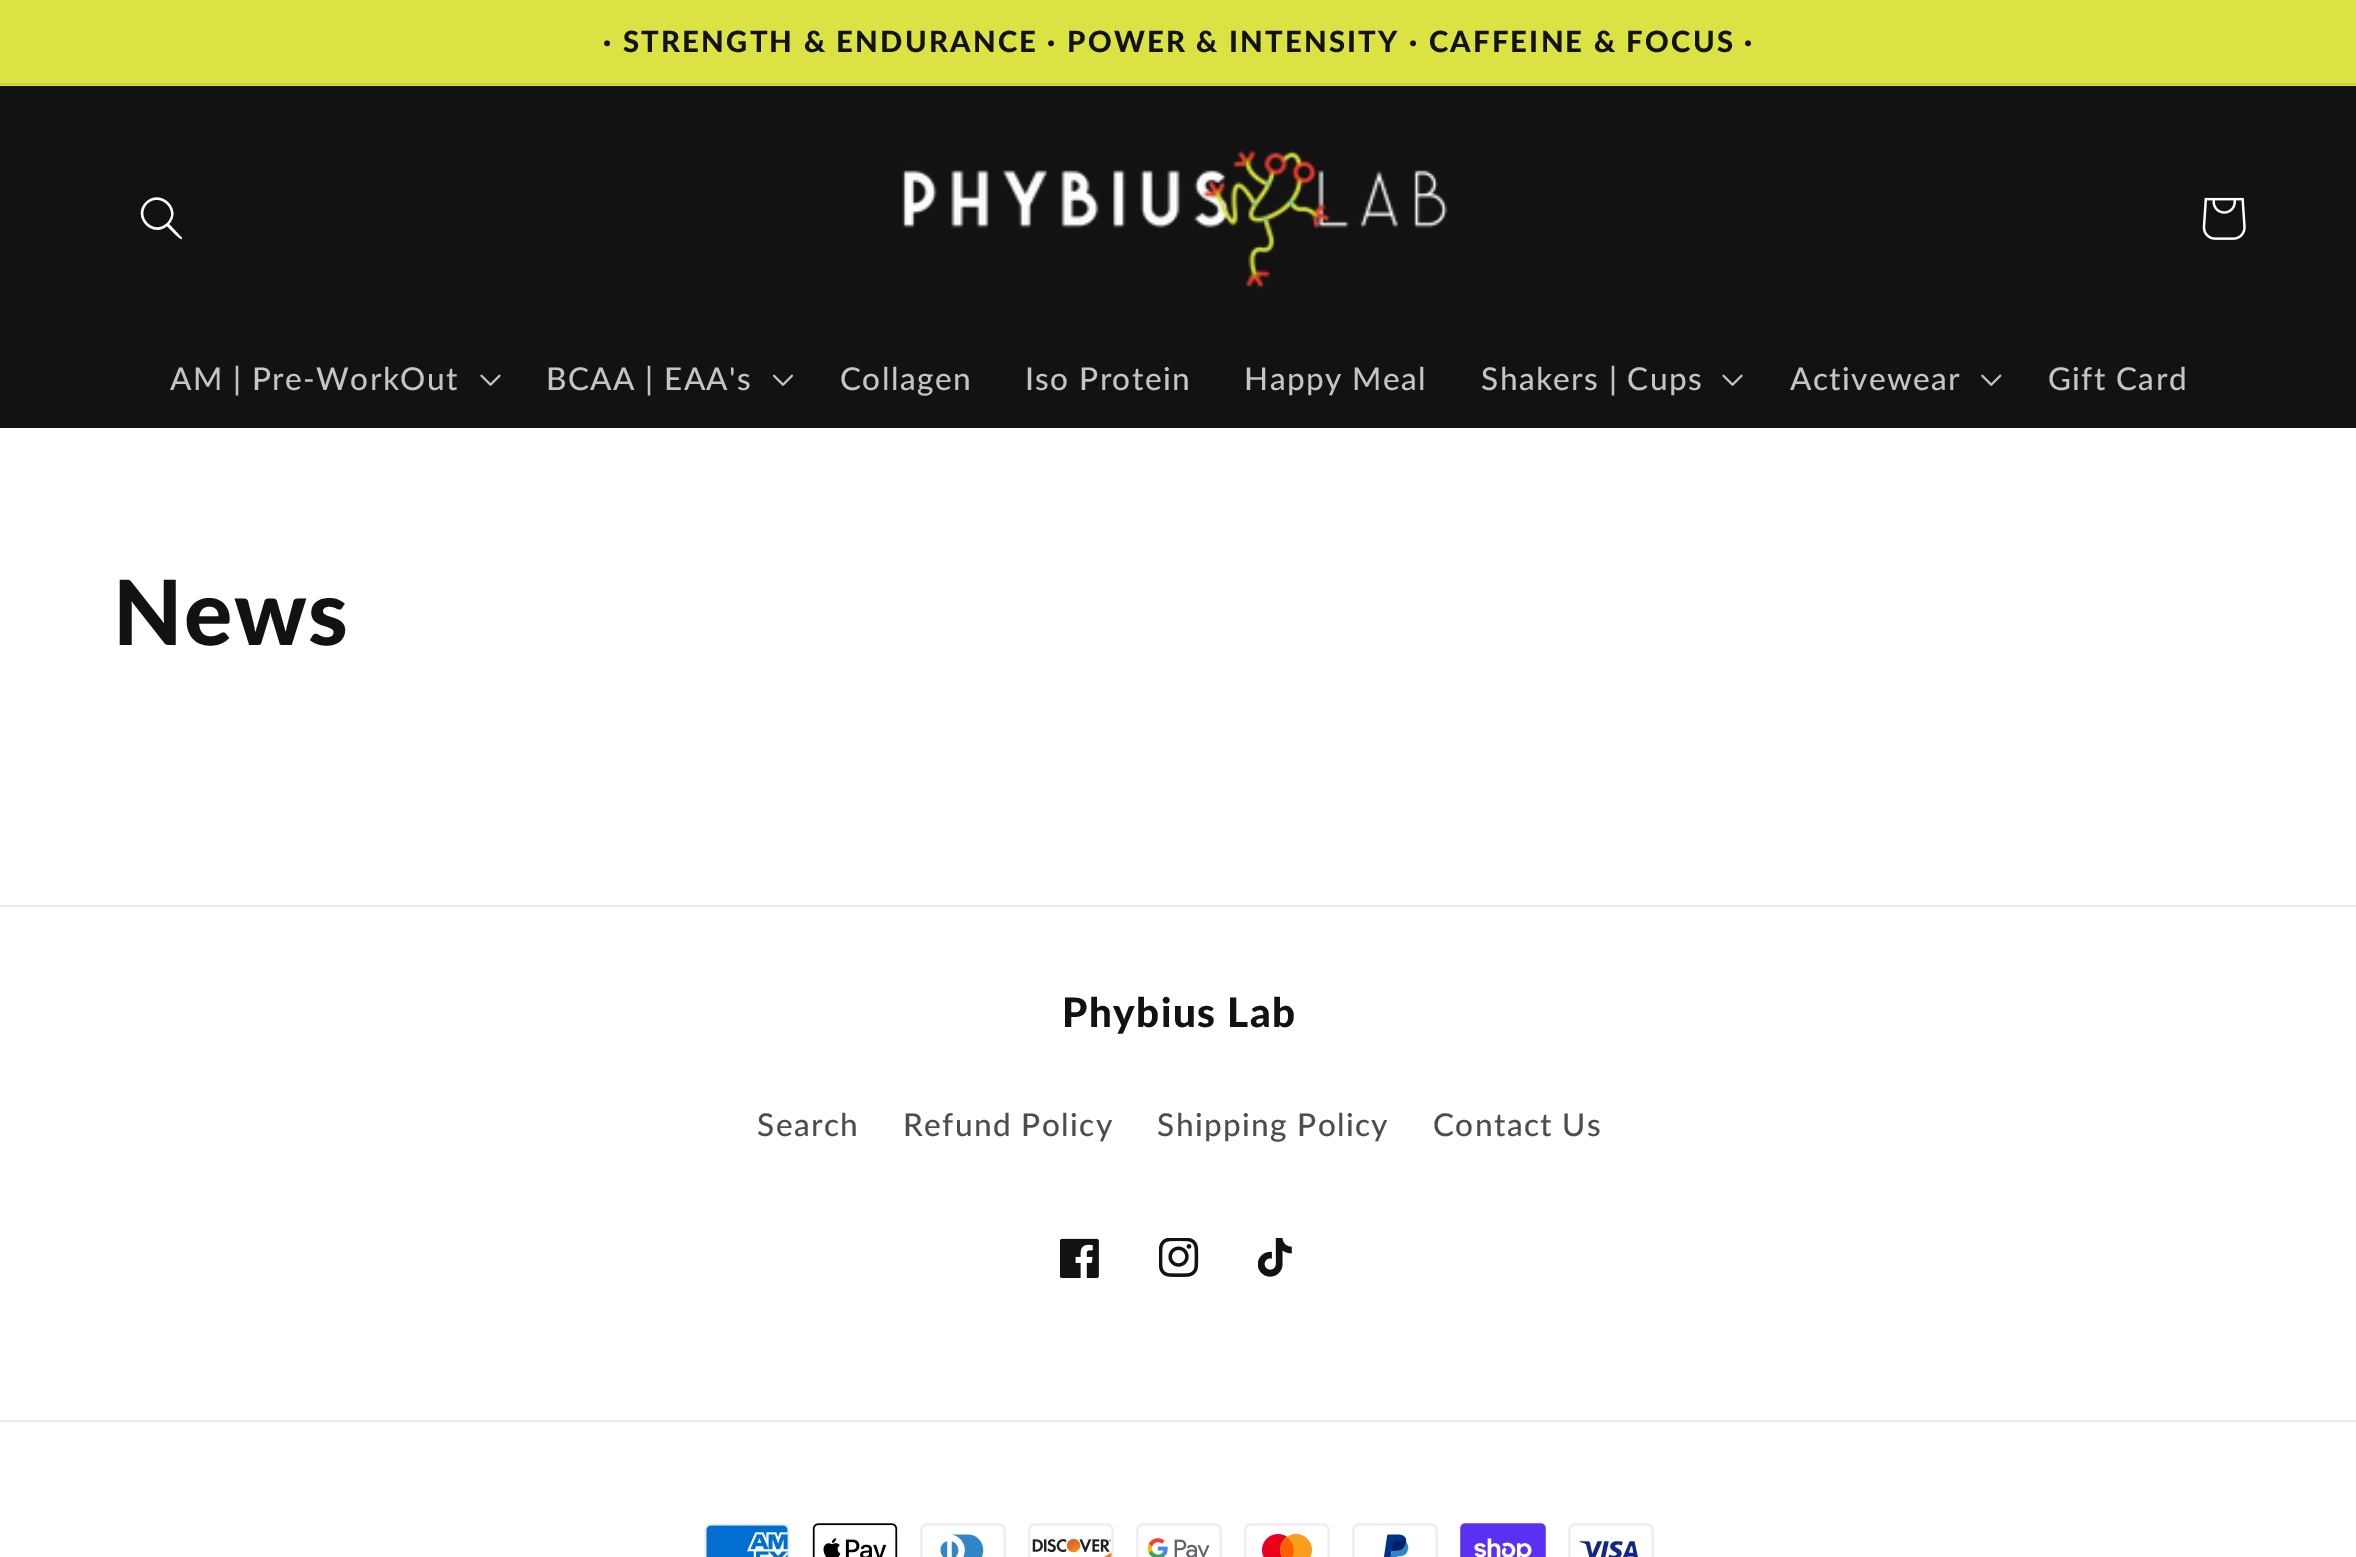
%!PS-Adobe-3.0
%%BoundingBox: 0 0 2356 1557
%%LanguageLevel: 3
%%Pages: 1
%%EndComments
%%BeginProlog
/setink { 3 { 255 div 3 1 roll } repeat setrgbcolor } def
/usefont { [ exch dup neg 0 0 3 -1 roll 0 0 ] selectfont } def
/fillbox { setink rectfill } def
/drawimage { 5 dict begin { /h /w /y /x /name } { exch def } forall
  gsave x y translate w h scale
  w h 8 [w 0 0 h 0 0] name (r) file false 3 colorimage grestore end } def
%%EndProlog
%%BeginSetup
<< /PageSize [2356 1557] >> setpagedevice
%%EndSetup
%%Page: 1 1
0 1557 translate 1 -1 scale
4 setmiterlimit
0 0 2356 1557 255 255 255 fillbox
0 0 2356 86 218 227 67 fillbox
0 83 2356 2 202 210 63 fillbox
/Lato-Black 29.25 usefont
18 18 18 setink
603 52 moveto 2.25 0 (· STRENGTH & ENDURANCE · POWER & INTENSITY · CAFFEINE & FOCUS ·) ashow
0 86 2356 342 18 18 18 fillbox
255 255 255 setink
167 223 moveto 154 236 135 217 147 204 curveto 160 191 180 211 167 223 curveto closepath 167 226 moveto 152 239 131 216 146 202 curveto 160 188 183 209 169 224 curveto 182 238 lineto 182 239 lineto 180 240 169 228 167 226 curveto closepath eofill
(assets/img1.rgb) 902 150 546 139 drawimage
(assets/img2.rgb) 2202 197 44 43 drawimage
/Lato-Medium 31.5 usefont
196 196 196 setink
170 390 moveto 1.4 0 (AM | Pre-WorkOut) ashow
(assets/img3.rgb) 480 374 21 12 drawimage
546 390 moveto 1.4 0 (BCAA | EAA's) ashow
(assets/img4.rgb) 772 374 22 12 drawimage
840 390 moveto 1.4 0 (Collagen) ashow
1025 390 moveto 1.4 0 (Iso Protein) ashow
1244 390 moveto 1.4 0 (Happy Meal) ashow
1481 390 moveto 1.4 0 (Shakers | Cups) ashow
(assets/img3.rgb) 1722 374 21 12 drawimage
1790 390 moveto 1.4 0 (Activewear) ashow
(assets/img5.rgb) 1981 374 21 12 drawimage
2048 390 moveto 1.4 0 (Gift Card) ashow
/Lato-Black 90 usefont
18 18 18 setink
113 645 moveto 1.4 0 (News) ashow
0 905 2356 2 236 236 236 fillbox
/Lato-Black 40.5 usefont
18 18 18 setink
1062 1027 moveto 1.4 0 (Phybius Lab) ashow
/Lato-Medium 31.5 usefont
77 77 77 setink
757 1136 moveto 1.4 0 (Search) ashow
903 1136 moveto 1.4 0 (Refund Policy) ashow
1157 1136 moveto 1.4 0 (Shipping Policy) ashow
1433 1136 moveto 1.4 0 (Contact Us) ashow
(assets/img6.rgb) 1060 1238 39 40 drawimage
(assets/img7.rgb) 1159 1238 40 39 drawimage
(assets/img8.rgb) 1258 1238 34 39 drawimage
0 1420 2356 2 236 236 236 fillbox
(assets/img9.rgb) 704 1523 86 34 drawimage
(assets/img10.rgb) 812 1523 86 34 drawimage
(assets/img11.rgb) 920 1523 86 34 drawimage
(assets/img12.rgb) 1028 1523 86 34 drawimage
(assets/img13.rgb) 1136 1523 86 34 drawimage
(assets/img14.rgb) 1244 1523 86 34 drawimage
(assets/img15.rgb) 1352 1523 86 34 drawimage
(assets/img16.rgb) 1460 1523 86 34 drawimage
(assets/img17.rgb) 1568 1523 86 34 drawimage
showpage
%%EOF
